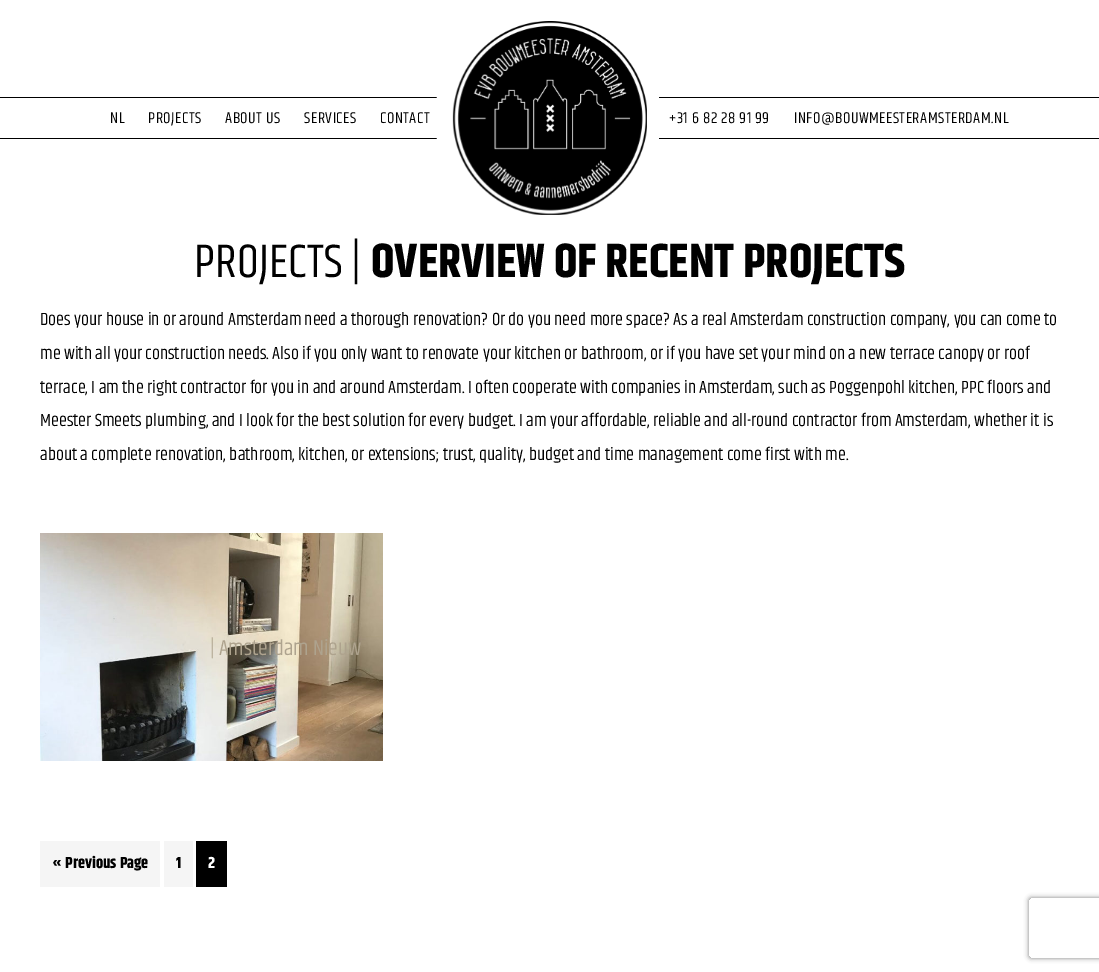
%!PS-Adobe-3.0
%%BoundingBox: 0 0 1099 972
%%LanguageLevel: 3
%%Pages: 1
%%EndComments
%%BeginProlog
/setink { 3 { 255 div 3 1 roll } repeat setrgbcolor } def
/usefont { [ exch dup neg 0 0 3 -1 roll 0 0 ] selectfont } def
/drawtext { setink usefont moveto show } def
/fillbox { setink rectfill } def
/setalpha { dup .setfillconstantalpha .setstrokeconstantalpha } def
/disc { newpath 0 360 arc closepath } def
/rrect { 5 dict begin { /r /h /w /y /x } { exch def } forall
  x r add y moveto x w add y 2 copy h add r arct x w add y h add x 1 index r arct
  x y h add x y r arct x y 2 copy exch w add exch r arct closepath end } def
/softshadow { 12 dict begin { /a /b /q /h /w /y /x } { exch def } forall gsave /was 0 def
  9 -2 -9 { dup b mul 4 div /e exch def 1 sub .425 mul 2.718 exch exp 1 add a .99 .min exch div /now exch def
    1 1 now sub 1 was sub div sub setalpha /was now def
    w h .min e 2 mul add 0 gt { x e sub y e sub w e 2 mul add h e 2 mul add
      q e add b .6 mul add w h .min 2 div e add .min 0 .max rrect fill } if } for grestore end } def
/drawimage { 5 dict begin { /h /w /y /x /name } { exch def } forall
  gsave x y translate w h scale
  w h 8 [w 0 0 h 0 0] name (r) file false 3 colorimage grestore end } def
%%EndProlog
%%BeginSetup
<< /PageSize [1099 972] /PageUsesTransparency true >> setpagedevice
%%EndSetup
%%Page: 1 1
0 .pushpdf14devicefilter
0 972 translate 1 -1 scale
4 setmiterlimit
0 0 1099 972 255 255 255 fillbox
0 97 440 1 0 0 0 fillbox
0 138 440 1 0 0 0 fillbox
/Khand-Regular 16 usefont
110 123 moveto 0.5 0 (NL) ashow
148 123 moveto 0.5 0 (PROJECTS) ashow
225 123 moveto 0.5 0 (ABOUT US) ashow
304 123 moveto 0.5 0 (SERVICES) ashow
380 123 moveto 0.5 0 (CONTACT) ashow
255 255 255 setink
550 118 106 disc gsave fill grestore
18 setlinewidth
stroke
(assets/img1.rgb) 452 21 195 194 drawimage
659 97 440 1 0 0 0 fillbox
659 138 440 1 0 0 0 fillbox
669 123 moveto 0.5 0 (+31 6 82 28 91 99) ashow
794 123 moveto 0.5 0 (INFO@BOUWMEESTERAMSTERDAM.NL) ashow
(PROJECTS |) 194 277 /Khand-Regular 48 0 0 0 drawtext
(OVERVIEW OF RECENT PROJECTS) 371 277 /Khand-Bold 48 0 0 0 drawtext
(Does your house in or around Amsterdam need a thorough renovation? Or do you need more space? As a real Amsterdam construction company, you can come to) 40 325 /Khand-Regular 18 0 0 0 drawtext
(me with all your construction needs. Also if you only want to renovate your kitchen or bathroom, or if you have set your mind on a new terrace canopy or roof) 40 359 /Khand-Regular 18 0 0 0 drawtext
(terrace, I am the right contractor for you in and around Amsterdam. I often cooperate with companies in Amsterdam, such as Poggenpohl kitchen, PPC floors and) 40 393 /Khand-Regular 18 0 0 0 drawtext
(Meester Smeets plumbing, and I look for the best solution for every budget. I am your affordable, reliable and all-round contractor from Amsterdam, whether it is) 40 426 /Khand-Regular 18 0 0 0 drawtext
(about a complete renovation, bathroom, kitchen, or extensions; trust, quality, budget and time management come first with me.) 40 460 /Khand-Regular 18 0 0 0 drawtext
(assets/img2.rgb) 40 533 343 228 drawimage
(| Amsterdam Nieuw) 210 655 /Khand-Regular 22 174 163 142 drawtext
40 841 120 46 245 245 245 fillbox
(« Previous Page) 52 868 /Khand-Bold 16 0 0 0 drawtext
164 841 29 46 245 245 245 fillbox
(1) 176 868 /Khand-Bold 16 0 0 0 drawtext
196 841 31 46 0 0 0 fillbox
(2) 208 868 /Khand-Bold 16 255 255 255 drawtext
gsave
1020 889 moveto 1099 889 lineto 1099 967 lineto 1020 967 lineto closepath 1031 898 moveto 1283 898 lineto 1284 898 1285 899 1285 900 curveto 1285 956 lineto 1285 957 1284 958 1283 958 curveto 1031 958 lineto 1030 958 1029 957 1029 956 curveto 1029 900 lineto 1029 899 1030 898 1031 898 curveto closepath eoclip newpath
128 128 128 setink
1029 898 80 60 2 2.5 1 softshadow
grestore
.poppdf14devicefilter showpage
%%EOF
